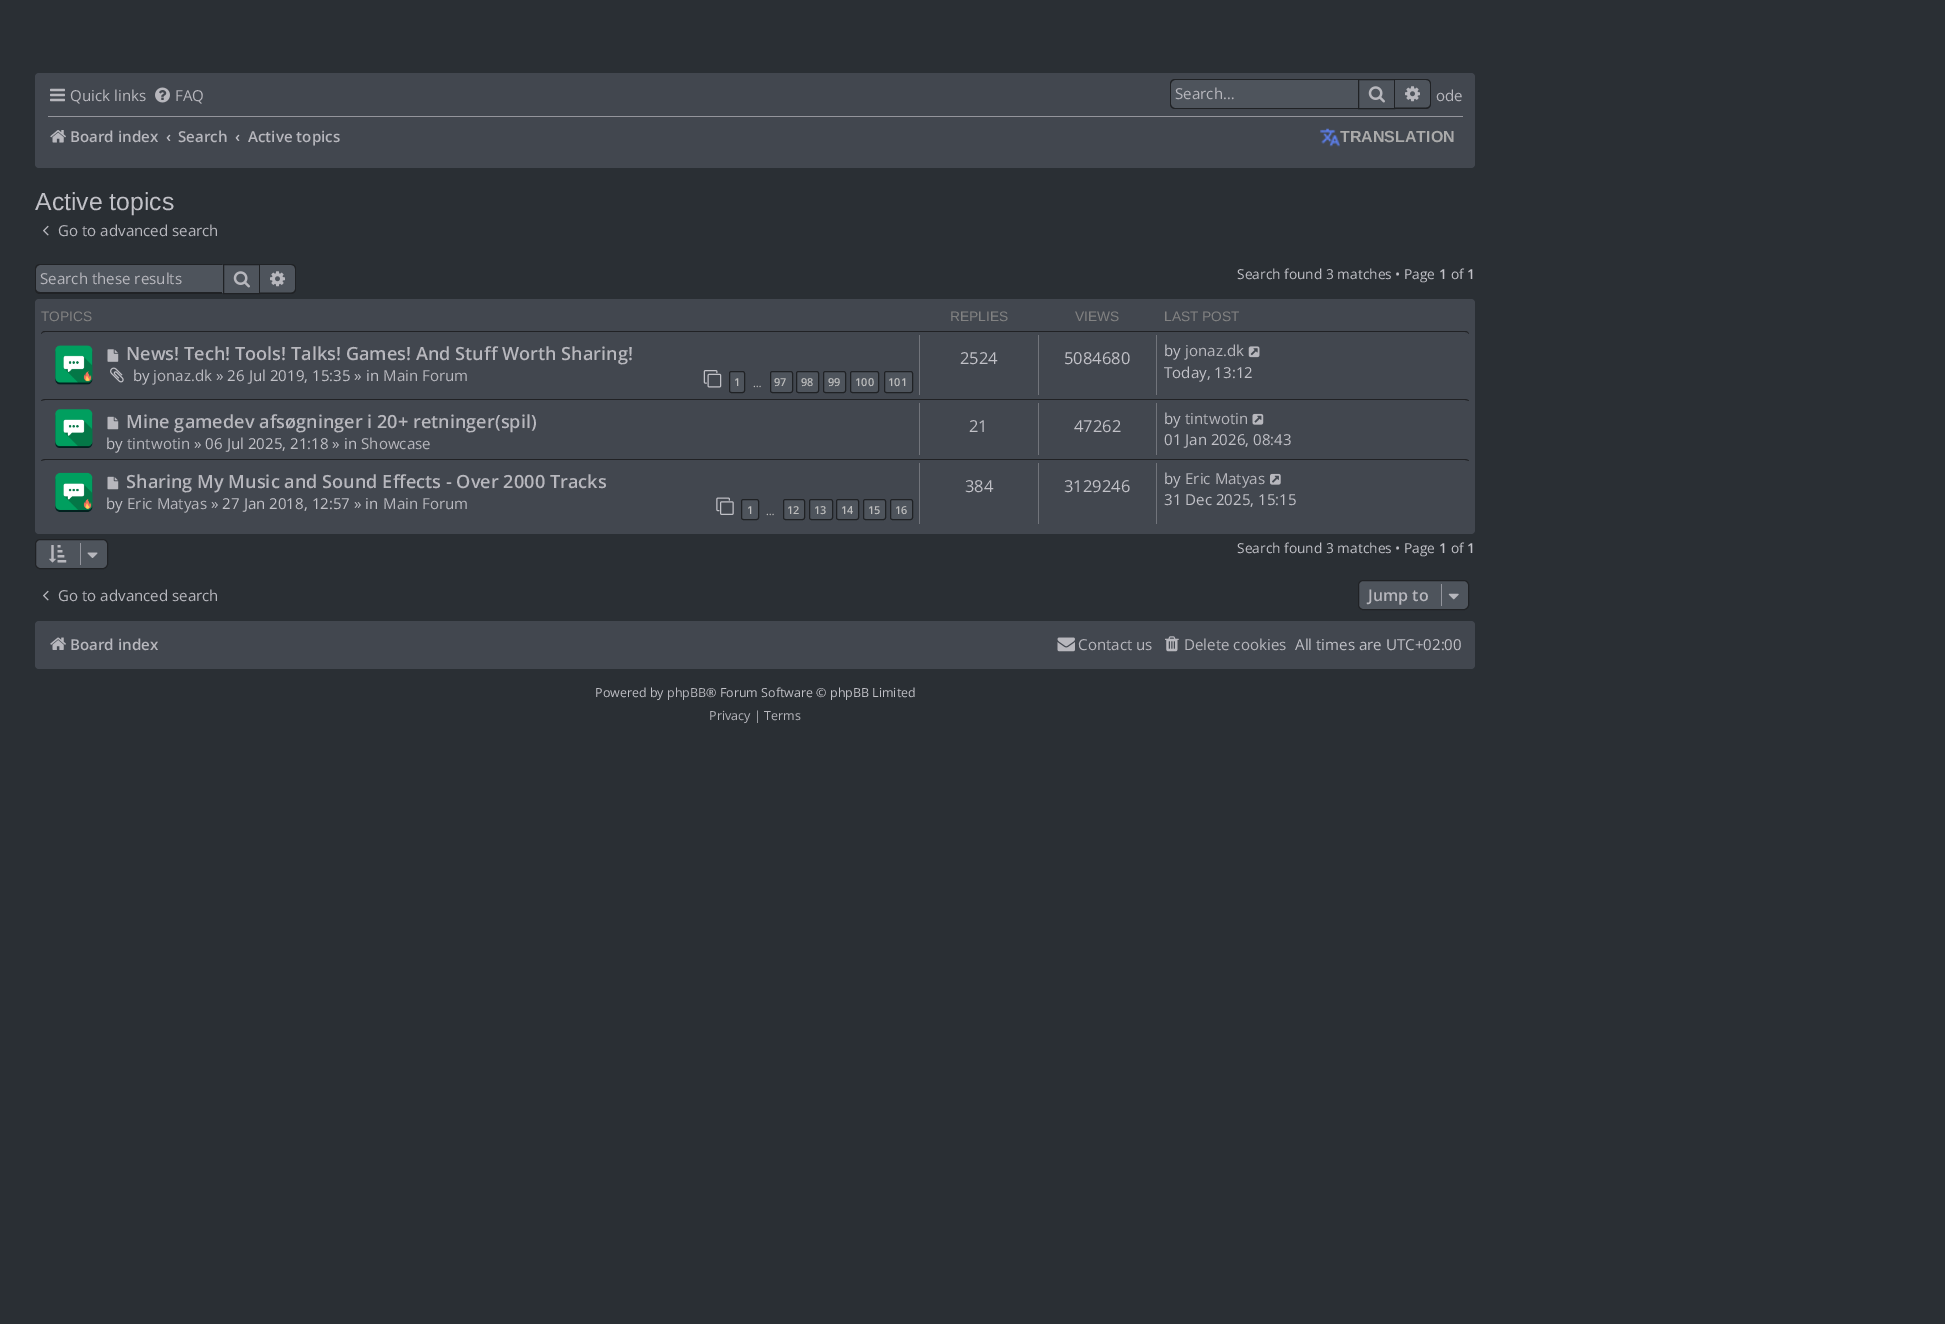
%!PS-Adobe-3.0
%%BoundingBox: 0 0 1945 1324
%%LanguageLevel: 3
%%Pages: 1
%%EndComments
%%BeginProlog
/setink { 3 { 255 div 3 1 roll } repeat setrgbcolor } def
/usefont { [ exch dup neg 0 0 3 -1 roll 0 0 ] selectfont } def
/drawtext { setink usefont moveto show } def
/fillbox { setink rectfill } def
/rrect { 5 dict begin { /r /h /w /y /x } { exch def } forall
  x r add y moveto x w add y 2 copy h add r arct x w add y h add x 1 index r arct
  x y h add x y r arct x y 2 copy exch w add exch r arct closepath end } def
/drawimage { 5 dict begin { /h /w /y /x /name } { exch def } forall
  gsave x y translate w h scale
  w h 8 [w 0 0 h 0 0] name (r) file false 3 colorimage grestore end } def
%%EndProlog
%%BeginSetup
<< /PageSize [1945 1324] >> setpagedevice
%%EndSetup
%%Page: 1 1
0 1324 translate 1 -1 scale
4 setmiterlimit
0 0 1945 1324 42 47 52 fillbox
66 71 79 setink
35 73 1440 95 4 rrect fill
78 84 92 setink
1175 80 moveto 1358 80 lineto 1358 108 lineto 1175 108 lineto 1173 108 1171 106 1171 104 curveto 1171 84 lineto 1171 82 1173 80 1175 80 curveto closepath fill
32 34 37 setink
1175 79 moveto 1358 79 lineto 1358 109 lineto 1175 109 lineto 1172 109 1170 107 1170 104 curveto 1170 84 lineto 1170 81 1172 79 1175 79 curveto closepath 1175 80 moveto 1358 80 lineto 1358 108 lineto 1175 108 lineto 1173 108 1171 106 1171 104 curveto 1171 84 lineto 1171 82 1173 80 1175 80 curveto closepath eofill
(Search…) 1175 99 /OpenSans-Regular 15.1 183 183 189 drawtext
78 84 92 setink
1358.5 79.5 moveto 1394.5 79.5 lineto 1394.5 108.5 lineto 1358.5 108.5 lineto closepath gsave fill grestore
32 34 37 setink
stroke
(assets/img1.rgb) 1368 86 17 17 drawimage
78 84 92 setink
1395 80 moveto 1426 80 lineto 1428 80 1430 82 1430 84 curveto 1430 104 lineto 1430 106 1428 108 1426 108 curveto 1395 108 lineto closepath fill
32 34 37 setink
1395 79 moveto 1426 79 lineto 1429 79 1431 81 1431 84 curveto 1431 104 lineto 1431 106.5 1429 109 1426 109 curveto 1395 109 lineto closepath 1395 80 moveto 1426 80 lineto 1428.5 80 1430 81.5 1430 84 curveto 1430 104 lineto 1430 106 1428.5 107.5 1426 107.5 curveto 1395 107.5 lineto closepath eofill
(assets/img2.rgb) 1405 86 15 16 drawimage
(assets/img3.rgb) 50 88 15 14 drawimage
(Quick links) 70 101 /OpenSans-Regular 15.1 183 183 189 drawtext
(assets/img4.rgb) 155 87 15 16 drawimage
(FAQ) 175 101 /OpenSans-Regular 15.1 183 183 189 drawtext
(ode) 1436 101 /OpenSans-Regular 15.1 183 183 189 drawtext
48 116 1415 1 148 149 156 fillbox
(assets/img5.rgb) 50 130 16 13 drawimage
(Board index) 70 142 /OpenSans-SemiBold 15.1 183 183 189 drawtext
(‹) 166 142 /OpenSans-SemiBold 15.1 193 193 199 drawtext
(Search) 178 142 /OpenSans-SemiBold 15.1 183 183 189 drawtext
(‹) 235 142 /OpenSans-SemiBold 15.1 193 193 199 drawtext
(Active topics) 248 142 /OpenSans-SemiBold 15.1 183 183 189 drawtext
(assets/img6.rgb) 1320 128 20 19 drawimage
(TRANSLATION) 1340 142 /LiberationSans-Bold 16 170 170 170 drawtext
(Active topics) 35 210 /LiberationSans-Regular 24.75 193 193 199 drawtext
(assets/img7.rgb) 43 225 6 11 drawimage
(Go to advanced search) 58 236 /OpenSans-Regular 15.1 183 183 189 drawtext
78 84 92 setink
40 265 moveto 223 265 lineto 223 293 lineto 40 293 lineto 38 293 36 291 36 289 curveto 36 269 lineto 36 267 38 265 40 265 curveto closepath fill
32 34 37 setink
40 264 moveto 222 264 lineto 222 294 lineto 40 294 lineto 37 294 35 292 35 289 curveto 35 269 lineto 35 266 37 264 40 264 curveto closepath 40 265 moveto 222 265 lineto 222 292 lineto 40 292 lineto 38 292 36 291 36 289 curveto 36 269 lineto 36 267 38 265 40 265 curveto closepath eofill
(Search these results) 40 284 /OpenSans-Regular 15.1 183 183 189 drawtext
78 84 92 setink
223.5 264.5 moveto 259.5 264.5 lineto 259.5 293.5 lineto 223.5 293.5 lineto closepath gsave fill grestore
32 34 37 setink
stroke
(assets/img1.rgb) 233 271 17 17 drawimage
78 84 92 setink
260 265 moveto 291 265 lineto 293 265 295 267 295 269 curveto 295 289 lineto 295 291 293 293 291 293 curveto 260 293 lineto closepath fill
32 34 37 setink
260 264 moveto 291 264 lineto 294 264 296 266 296 269 curveto 296 289 lineto 296 291.5 294 294 291 294 curveto 260 294 lineto closepath 260 265 moveto 291 265 lineto 293.5 265 295 266.5 295 269 curveto 295 289 lineto 295 291 293.5 292.5 291 292.5 curveto 260 292.5 lineto closepath eofill
(assets/img2.rgb) 270 271 15 16 drawimage
(Search found 3 matches • Page) 1237 279 /OpenSans-Regular 13.75 193 193 199 drawtext
(1) 1439 279 /OpenSans-SemiBold 13.75 193 193 199 drawtext
(of) 1451 279 /OpenSans-Regular 13.75 193 193 199 drawtext
(1) 1467 279 /OpenSans-SemiBold 13.75 193 193 199 drawtext
66 71 79 setink
35 299 1440 235 4 rrect fill
(TOPICS) 41 321 /LiberationSans-Regular 13.75 130 130 130 drawtext
(REPLIES) 950 321 /LiberationSans-Regular 13.75 130 130 130 drawtext
(VIEWS) 1075 321 /LiberationSans-Regular 13.75 130 130 130 drawtext
(LAST POST) 1164 321 /LiberationSans-Regular 13.75 130 130 130 drawtext
33 34 37 setink
45 332 moveto 43 332 42 333 41 334 curveto 41 333 43 331 44 331 curveto 1466 331 lineto 1467 331 1469 333 1469 334 curveto 1468 333 1467 332 1465 332 curveto closepath fill
(assets/img8.rgb) 55 345 38 40 drawimage
(assets/img9.rgb) 107 349 12 13 drawimage
(News! Tech! Tools! Talks! Games! And Stuff Worth Sharing!) 126 360 /OpenSans-SemiBold 18.15 183 183 189 drawtext
(assets/img10.rgb) 110 367 14 16 drawimage
(by) 133 381 /OpenSans-Regular 15.1 193 193 199 drawtext
(jonaz.dk) 153 381 /OpenSans-Regular 15.1 183 183 189 drawtext
(» 26 Jul 2019, 15:35 » in) 216 381 /OpenSans-Regular 15.1 193 193 199 drawtext
(Main Forum) 383 381 /OpenSans-Regular 15.1 183 183 189 drawtext
(assets/img11.rgb) 703 370 19 18 drawimage
78 84 92 setink
729.5 371.5 15 21 2 rrect gsave fill grestore
32 34 37 setink
stroke
(1) 734 386 /OpenSans-SemiBold 11 189 189 189 drawtext
78 84 92 setink
770.5 371.5 22 21 2 rrect gsave fill grestore
32 34 37 setink
stroke
(97) 774 386 /OpenSans-SemiBold 11 189 189 189 drawtext
78 84 92 setink
796.5 371.5 22 21 2 rrect gsave fill grestore
32 34 37 setink
stroke
(98) 801 386 /OpenSans-SemiBold 11 189 189 189 drawtext
78 84 92 setink
823.5 371.5 22 21 2 rrect gsave fill grestore
32 34 37 setink
stroke
(99) 828 386 /OpenSans-SemiBold 11 189 189 189 drawtext
78 84 92 setink
850.5 371.5 28 21 2 rrect gsave fill grestore
32 34 37 setink
stroke
(100) 855 386 /OpenSans-SemiBold 11 189 189 189 drawtext
78 84 92 setink
884.5 371.5 28 21 2 rrect gsave fill grestore
32 34 37 setink
stroke
(101) 888 386 /OpenSans-SemiBold 11 189 189 189 drawtext
(…) 753 387 /OpenSans-Regular 11 189 189 189 drawtext
919 335 1 60 113 116 123 fillbox
(2524) 960 364 /OpenSans-Regular 16.5 193 193 199 drawtext
1038 335 1 60 113 116 123 fillbox
(5084680) 1064 364 /OpenSans-Regular 16.5 193 193 199 drawtext
1156 335 1 60 113 116 123 fillbox
(by) 1164 356 /OpenSans-Regular 15.1 193 193 199 drawtext
(jonaz.dk) 1185 356 /OpenSans-Regular 15.1 183 183 189 drawtext
(assets/img12.rgb) 1248 346 12 12 drawimage
(Today, 13:12) 1164 378 /OpenSans-Regular 15.1 193 193 199 drawtext
33 34 37 setink
45 399 moveto 1465 399 lineto 1466 399 1469 400 1469 401 curveto 1468 401 1467 400 1465 400 curveto 45 400 lineto 43 400 42 401 41 401 curveto 41 400 44 399 45 399 curveto closepath fill
(assets/img13.rgb) 55 409 38 39 drawimage
(assets/img14.rgb) 107 416 12 14 drawimage
(Mine gamedev afsøgninger i 20+ retninger\(spil\)) 126 428 /OpenSans-SemiBold 18.15 183 183 189 drawtext
(by) 106 449 /OpenSans-Regular 15.1 193 193 199 drawtext
(tintwotin) 127 449 /OpenSans-Regular 15.1 183 183 189 drawtext
(» 06 Jul 2025, 21:18 » in) 194 449 /OpenSans-Regular 15.1 193 193 199 drawtext
(Showcase) 361 449 /OpenSans-Regular 15.1 183 183 189 drawtext
919 403 1 52 113 116 123 fillbox
(21) 969 432 /OpenSans-Regular 16.5 193 193 199 drawtext
1038 403 1 52 113 116 123 fillbox
(47262) 1074 432 /OpenSans-Regular 16.5 193 193 199 drawtext
1156 403 1 52 113 116 123 fillbox
(by) 1164 424 /OpenSans-Regular 15.1 193 193 199 drawtext
(tintwotin) 1185 424 /OpenSans-Regular 15.1 183 183 189 drawtext
(assets/img15.rgb) 1252 413 12 12 drawimage
(01 Jan 2026, 08:43) 1164 445 /OpenSans-Regular 15.1 193 193 199 drawtext
33 34 37 setink
45 459 moveto 1465 459 lineto 1466 459 1469 460 1469 461 curveto 1468 461 1467 460 1465 460 curveto 45 460 lineto 43 460 42 461 41 461 curveto 41 460 44 459 45 459 curveto closepath fill
(assets/img16.rgb) 55 472 38 40 drawimage
(assets/img14.rgb) 107 476 12 14 drawimage
(Sharing My Music and Sound Effects - Over 2000 Tracks) 126 488 /OpenSans-SemiBold 18.15 183 183 189 drawtext
(by) 106 509 /OpenSans-Regular 15.1 193 193 199 drawtext
(Eric Matyas) 127 509 /OpenSans-Regular 15.1 183 183 189 drawtext
(» 27 Jan 2018, 12:57 » in) 211 509 /OpenSans-Regular 15.1 193 193 199 drawtext
(Main Forum) 383 509 /OpenSans-Regular 15.1 183 183 189 drawtext
(assets/img17.rgb) 716 497 18 18 drawimage
78 84 92 setink
741.5 499.5 17 20 2 rrect gsave fill grestore
32 34 37 setink
stroke
(1) 747 514 /OpenSans-SemiBold 11 189 189 189 drawtext
(…) 766 515 /OpenSans-Regular 11 189 189 189 drawtext
78 84 92 setink
783.5 499.5 21 20 2 rrect gsave fill grestore
32 34 37 setink
stroke
(12) 787 514 /OpenSans-SemiBold 11 189 189 189 drawtext
78 84 92 setink
809.5 499.5 23 20 2 rrect gsave fill grestore
32 34 37 setink
stroke
(13) 814 514 /OpenSans-SemiBold 11 189 189 189 drawtext
78 84 92 setink
836.5 499.5 22 20 2 rrect gsave fill grestore
32 34 37 setink
stroke
(14) 841 514 /OpenSans-SemiBold 11 189 189 189 drawtext
78 84 92 setink
863.5 499.5 22 20 2 rrect gsave fill grestore
32 34 37 setink
stroke
(15) 868 514 /OpenSans-SemiBold 11 189 189 189 drawtext
78 84 92 setink
890.5 499.5 22 20 2 rrect gsave fill grestore
32 34 37 setink
stroke
(16) 895 514 /OpenSans-SemiBold 11 189 189 189 drawtext
919 463 1 61 113 116 123 fillbox
(384) 965 492 /OpenSans-Regular 16.5 193 193 199 drawtext
1038 463 1 61 113 116 123 fillbox
(3129246) 1064 492 /OpenSans-Regular 16.5 193 193 199 drawtext
1156 463 1 61 113 116 123 fillbox
(by) 1164 484 /OpenSans-Regular 15.1 193 193 199 drawtext
(Eric Matyas) 1185 484 /OpenSans-Regular 15.1 183 183 189 drawtext
(assets/img18.rgb) 1270 473 11 12 drawimage
(31 Dec 2025, 15:15) 1164 505 /OpenSans-Regular 15.1 193 193 199 drawtext
78 84 92 setink
35.5 539.5 72 29 4.5 rrect gsave fill grestore
32 34 37 setink
stroke
(assets/img19.rgb) 49 545 18 18 drawimage
80 543 1 22 147 149 157 fillbox
(assets/img20.rgb) 87 552 11 6 drawimage
(Search found 3 matches • Page) 1237 553 /OpenSans-Regular 13.75 193 193 199 drawtext
(1) 1439 553 /OpenSans-SemiBold 13.75 193 193 199 drawtext
(of) 1451 553 /OpenSans-Regular 13.75 193 193 199 drawtext
(1) 1467 553 /OpenSans-SemiBold 13.75 193 193 199 drawtext
(assets/img7.rgb) 43 590 6 11 drawimage
(Go to advanced search) 58 601 /OpenSans-Regular 15.1 183 183 189 drawtext
78 84 92 setink
1358.5 580.5 110 29 4.5 rrect gsave fill grestore
32 34 37 setink
stroke
(Jump to) 1368 601 /OpenSans-SemiBold 16 183 183 189 drawtext
1441 584 1 22 147 149 157 fillbox
(assets/img21.rgb) 1448 593 11 7 drawimage
66 71 79 setink
35 621 1440 48 4 rrect fill
(assets/img22.rgb) 50 637 16 13 drawimage
(Board index) 70 650 /OpenSans-SemiBold 15.1 183 183 189 drawtext
(assets/img23.rgb) 1057 637 18 15 drawimage
(Contact us) 1078 650 /OpenSans-Regular 15.1 183 183 189 drawtext
(assets/img24.rgb) 1165 636 14 16 drawimage
(Delete cookies) 1184 650 /OpenSans-Regular 15.1 183 183 189 drawtext
(All times are UTC+02:00) 1295 650 /OpenSans-Regular 15.1 193 193 199 drawtext
(Powered by) 595 697 /OpenSans-Regular 12.5 193 193 199 drawtext
(phpBB) 667 697 /OpenSans-Regular 12.5 183 183 189 drawtext
(® Forum Software © phpBB Limited) 706 697 /OpenSans-Regular 12.5 193 193 199 drawtext
(Privacy) 709 720 /OpenSans-Regular 12.5 183 183 189 drawtext
(|) 754 720 /OpenSans-Regular 12.5 193 193 199 drawtext
(Terms) 764 720 /OpenSans-Regular 12.5 183 183 189 drawtext
showpage
%%EOF
